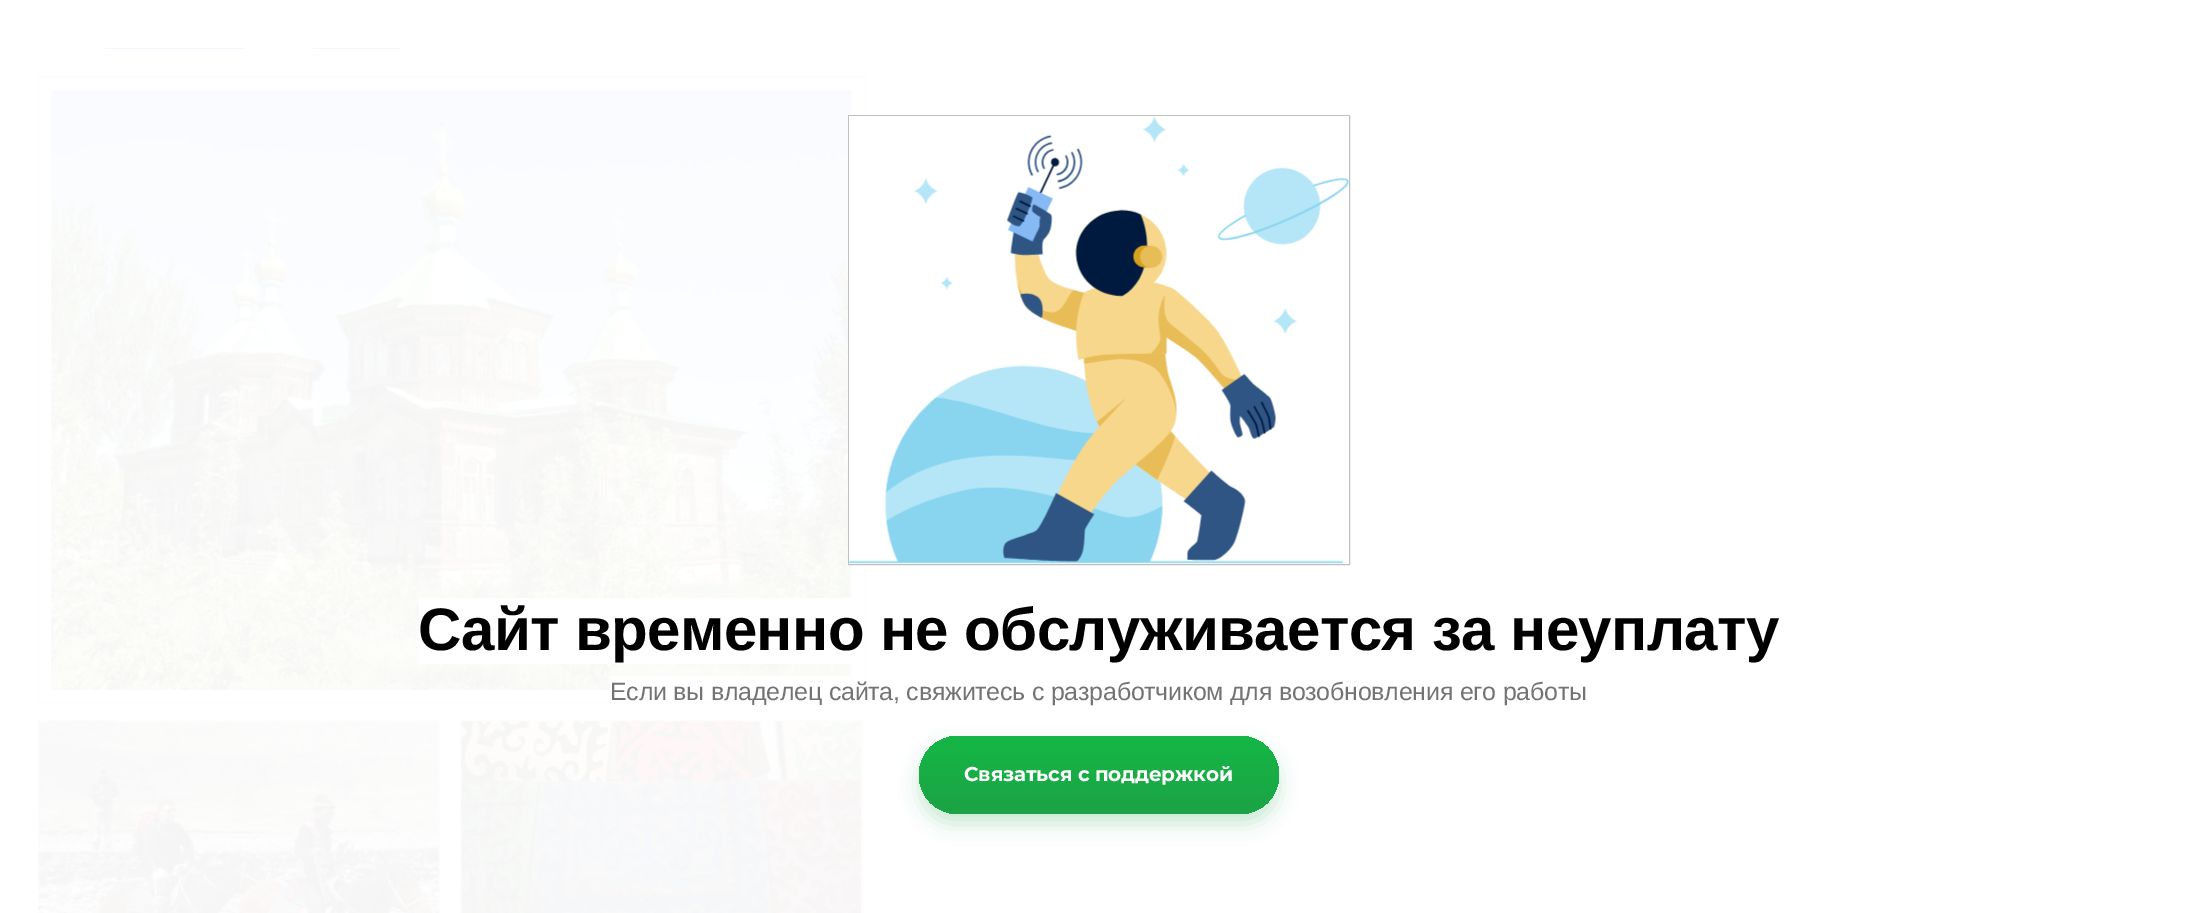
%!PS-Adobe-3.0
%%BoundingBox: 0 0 2197 913
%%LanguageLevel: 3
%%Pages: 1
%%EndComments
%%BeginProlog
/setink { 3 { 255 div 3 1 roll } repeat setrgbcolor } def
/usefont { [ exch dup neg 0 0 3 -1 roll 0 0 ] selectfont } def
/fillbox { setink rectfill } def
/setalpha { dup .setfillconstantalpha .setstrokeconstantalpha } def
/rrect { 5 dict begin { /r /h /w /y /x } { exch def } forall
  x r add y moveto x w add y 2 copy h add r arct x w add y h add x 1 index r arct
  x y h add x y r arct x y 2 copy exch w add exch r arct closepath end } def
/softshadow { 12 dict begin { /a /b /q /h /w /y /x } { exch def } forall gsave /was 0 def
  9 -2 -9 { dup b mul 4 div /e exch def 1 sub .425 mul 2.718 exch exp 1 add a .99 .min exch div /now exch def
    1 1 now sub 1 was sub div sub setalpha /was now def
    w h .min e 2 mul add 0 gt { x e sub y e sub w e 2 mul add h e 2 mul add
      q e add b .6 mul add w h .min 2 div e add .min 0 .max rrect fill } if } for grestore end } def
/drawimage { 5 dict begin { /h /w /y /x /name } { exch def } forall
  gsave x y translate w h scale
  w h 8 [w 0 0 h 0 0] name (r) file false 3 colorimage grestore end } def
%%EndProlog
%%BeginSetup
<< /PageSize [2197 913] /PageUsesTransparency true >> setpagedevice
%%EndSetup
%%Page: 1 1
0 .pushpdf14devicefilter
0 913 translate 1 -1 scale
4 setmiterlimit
0 0 2197 913 255 255 255 fillbox
105 48 139 1 0 0 255 fillbox
313 48 88 1 0 0 204 fillbox
204 204 204 setink
38.5 76.5 826 627 rectstroke
(assets/img1.rgb) 51 90 801 600 drawimage
192 192 192 setink
38.5 720.5 401 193 rectstroke
(assets/img3.rgb) 38 721 401 192 drawimage
460.5 720.5 402 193 rectstroke
(assets/img4.rgb) 461 721 401 192 drawimage
0.96 setalpha
255 255 255 setink
50 15 moveto 2148 15 lineto 2164.5 15 2178 28.5 2178 45 curveto 2178 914 lineto 20 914 lineto 20 45 lineto 20 28.5 33.5 15 50 15 curveto closepath fill
1 setalpha
849 116 2 448 255 255 255 fillbox
192 192 192 setink
848.5 115.5 501 449 rectstroke
(assets/img2.rgb) 848 116 501 448 drawimage
419 598 432 66 255 255 255 fillbox
/LiberationSans-Bold 60 usefont
0 0 0 setink
418 650 moveto -0.6 0 (Сайт временно не обслуживается за неуплату) ashow
610 676 241 14 255 255 255 fillbox
/LiberationSans-Regular 25 usefont
115 115 115 setink
610 700 moveto -0.25 0 (Если вы владелец сайта, свяжитесь с разработчиком для возобновления его работы) ashow
28 163 69 setink
919 746 360 78 39 10 0.24 softshadow
gsave 919 736 360 78 39 rrect clip newpath
<< /ShadingType 2 /ColorSpace /DeviceRGB /Coords [1099 736 1099 814] /Extend [true true] /Function << /FunctionType 2 /Domain [0 1] /C0 [0.082 0.718 0.275] /C1 [0.11 0.639 0.271] /N 1 >> >> shfill grestore
/Montserrat-Bold 20 usefont
255 255 255 setink
964 781 moveto -0.2 0 (Связаться с поддержкой) ashow
.poppdf14devicefilter showpage
%%EOF
